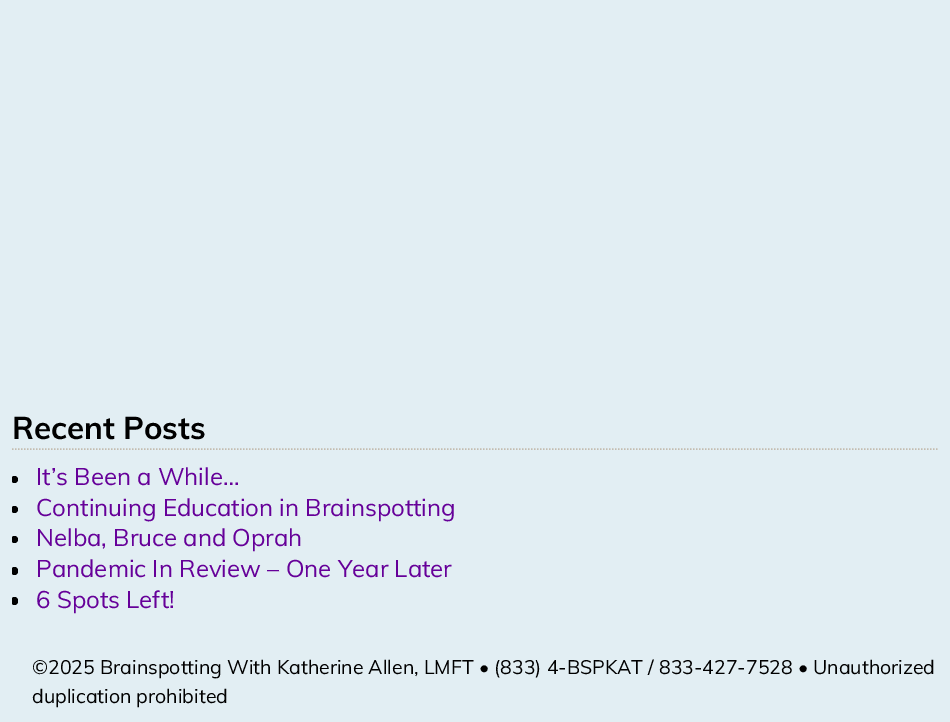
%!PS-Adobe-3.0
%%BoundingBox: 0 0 950 722
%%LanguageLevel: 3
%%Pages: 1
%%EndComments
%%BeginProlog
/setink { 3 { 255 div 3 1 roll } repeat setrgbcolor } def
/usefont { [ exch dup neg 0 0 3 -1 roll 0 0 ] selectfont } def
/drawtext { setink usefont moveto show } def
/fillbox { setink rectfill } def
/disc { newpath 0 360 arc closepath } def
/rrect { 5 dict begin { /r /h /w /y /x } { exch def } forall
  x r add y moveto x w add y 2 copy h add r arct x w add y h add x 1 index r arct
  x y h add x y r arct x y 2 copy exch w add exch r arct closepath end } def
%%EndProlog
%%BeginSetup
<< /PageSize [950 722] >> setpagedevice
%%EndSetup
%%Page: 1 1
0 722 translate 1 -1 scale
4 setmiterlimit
0 0 950 722 226 238 243 fillbox
196 188 176 setink
1.5 setlinewidth
[1.5 1.5] 0 setdash
12 449 moveto 939 449 lineto stroke
(Recent Posts) 12 439 /Muli-Bold 31.25 0 0 0 drawtext
gsave
12 408 927 206 rectclip
14.5 479.5 3.5 disc fill
grestore
(It’s Been a While…) 36 485 /Muli-Regular 24 102 0 153 drawtext
gsave
12 408 927 206 rectclip
0 0 0 setink
14.5 509.5 3.5 disc fill
grestore
(Continuing Education in Brainspotting) 36 516 /Muli-Regular 24 102 0 153 drawtext
gsave
12 408 927 206 rectclip
0 0 0 setink
14.5 539.5 3.5 disc fill
grestore
(Nelba, Bruce and Oprah) 36 546 /Muli-Regular 24 102 0 153 drawtext
gsave
12 408 927 206 rectclip
0 0 0 setink
11 567 7 8 3.5 rrect fill
grestore
(Pandemic In Review – One Year Later) 36 577 /Muli-Regular 24 102 0 153 drawtext
gsave
12 408 927 206 rectclip
0 0 0 setink
11 597 7 8 3.5 rrect fill
grestore
(6 Spots Left!) 36 608 /Muli-Regular 24 102 0 153 drawtext
(©2025 Brainspotting With Katherine Allen, LMFT • \(833\) 4-BSPKAT / 833-427-7528 • Unauthorized) 32 674 /Muli-Regular 19.5 0 0 0 drawtext
(duplication prohibited) 32 703 /Muli-Regular 19.5 0 0 0 drawtext
showpage
%%EOF
